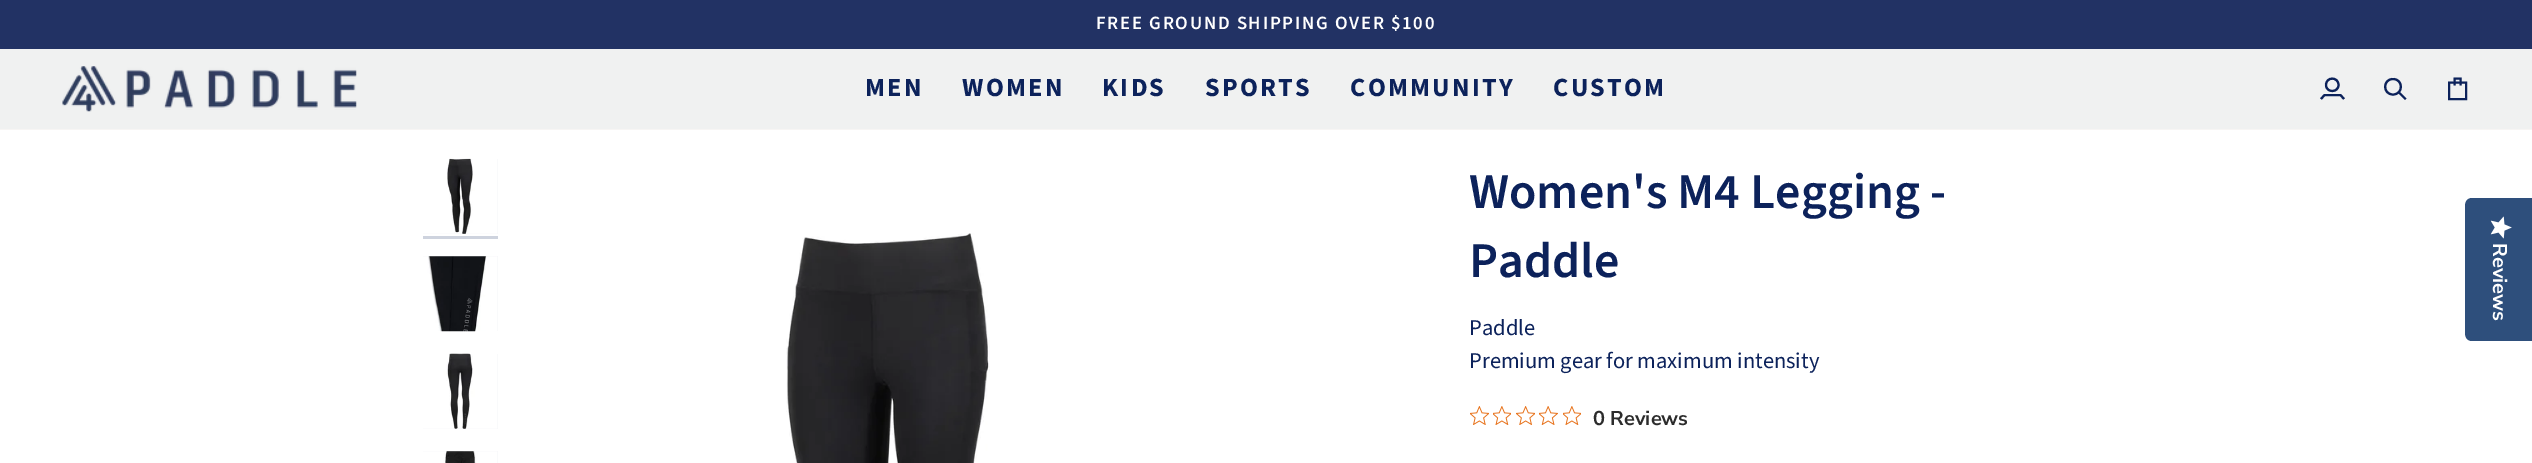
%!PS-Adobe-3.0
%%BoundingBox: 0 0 2532 463
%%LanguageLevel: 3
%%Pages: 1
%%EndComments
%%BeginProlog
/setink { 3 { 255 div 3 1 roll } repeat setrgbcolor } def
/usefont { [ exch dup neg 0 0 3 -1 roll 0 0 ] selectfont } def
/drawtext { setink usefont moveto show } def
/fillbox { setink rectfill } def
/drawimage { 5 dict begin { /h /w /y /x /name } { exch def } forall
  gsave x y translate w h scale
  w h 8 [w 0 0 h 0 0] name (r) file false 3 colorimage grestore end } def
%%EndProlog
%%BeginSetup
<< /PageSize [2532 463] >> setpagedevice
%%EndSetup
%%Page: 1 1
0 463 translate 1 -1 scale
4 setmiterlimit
0 0 2532 463 255 255 255 fillbox
0 0 2532 49 34 50 100 fillbox
/SourceSansPro-SemiBold 18.75 usefont
255 255 255 setink
1096 29 moveto 1.7 0 (FREE GROUND SHIPPING OVER $100) ashow
0 49 2532 80 240 241 241 fillbox
0 129 2532 1 247 245 244 fillbox
(assets/img1.rgb) 62 66 295 46 drawimage
/SourceSansPro-Bold 26.25 usefont
12 34 91 setink
865 96 moveto 2.25 0 (MEN) ashow
962 96 moveto 2.25 0 (WOMEN) ashow
1102 96 moveto 2.25 0 (KIDS) ashow
1205 96 moveto 2.25 0 (SPORTS) ashow
1350 96 moveto 2.25 0 (COMMUNITY) ashow
1553 96 moveto 2.25 0 (CUSTOM) ashow
2.1 setlinewidth
2321 99 moveto 2324.5 95 lineto 2340.5 95 lineto 2344 99 lineto 2338.5 85 moveto 2338.5 93 2326 93 2326 85 curveto 2326 76.5 2338.5 76.5 2338.5 85 curveto closepath stroke
2 setlinecap
2393 94.5 moveto 2403.5 94.5 2403.5 79 2393 79 curveto 2382.5 79 2382.5 94.5 2393 94.5 curveto closepath 2405 98.5 moveto 2399 92.5 lineto stroke
0 setlinecap
2449 82.5 moveto 2466 82.5 lineto 2466 99 lineto 2449 99 lineto closepath 2454.5 85.5 moveto 2454.5 78.5 lineto 2460.5 78.5 lineto 2460.5 85.5 lineto stroke
423 159 75 75 243 244 247 fillbox
(assets/img2.rgb) 423 158 75 76 drawimage
423 236 75 3 206 211 222 fillbox
423 256 75 75 243 244 247 fillbox
(assets/img3.rgb) 423 256 75 76 drawimage
423 354 75 75 243 244 247 fillbox
(assets/img4.rgb) 423 353 75 76 drawimage
423 451 75 12 243 244 247 fillbox
(assets/img5.rgb) 423 451 75 12 drawimage
(assets/img6.rgb) 786 233 204 230 drawimage
(Women's M4 Legging -) 1469 208 /SourceSansPro-SemiBold 50 12 34 91 drawtext
(Paddle) 1469 277 /SourceSansPro-SemiBold 50 12 34 91 drawtext
(Paddle) 1469 335 /SourceSansPro-Regular 22.5 12 34 91 drawtext
(Premium gear for maximum intensity) 1469 368 /SourceSansPro-Regular 22.5 12 34 91 drawtext
(assets/img7.rgb) 1470 406 19 19 drawimage
(assets/img8.rgb) 1493 406 18 19 drawimage
(assets/img9.rgb) 1516 406 19 19 drawimage
(assets/img10.rgb) 1539 406 19 19 drawimage
(assets/img8.rgb) 1563 406 18 19 drawimage
(0 Reviews) 1593 425 /NunitoSans-ExtraLight 20 44 44 44 drawtext
46 79 124 setink
2532 198 moveto 2532 341 lineto 2472 341 lineto 2468 341 2465 338 2465 333 curveto 2465 206 lineto 2465 201 2468 198 2472 198 curveto closepath fill
(assets/img11.rgb) 2490 216 22 23 drawimage
255 255 255 setink
gsave 2493 243 translate 90 rotate 0 0 moveto (Reviews) show grestore
showpage
%%EOF
